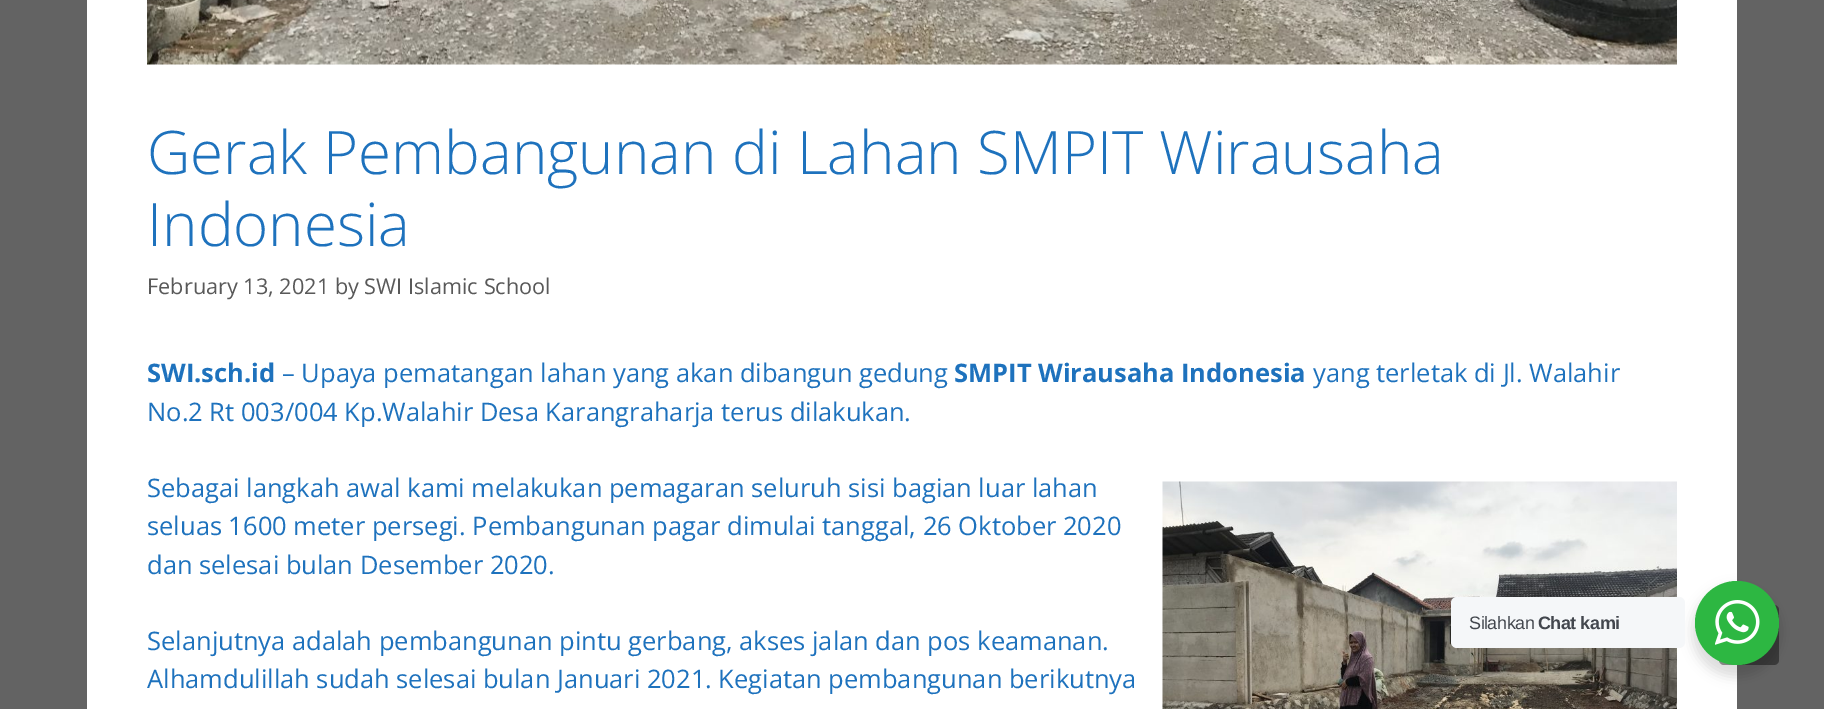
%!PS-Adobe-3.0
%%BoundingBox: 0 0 1824 709
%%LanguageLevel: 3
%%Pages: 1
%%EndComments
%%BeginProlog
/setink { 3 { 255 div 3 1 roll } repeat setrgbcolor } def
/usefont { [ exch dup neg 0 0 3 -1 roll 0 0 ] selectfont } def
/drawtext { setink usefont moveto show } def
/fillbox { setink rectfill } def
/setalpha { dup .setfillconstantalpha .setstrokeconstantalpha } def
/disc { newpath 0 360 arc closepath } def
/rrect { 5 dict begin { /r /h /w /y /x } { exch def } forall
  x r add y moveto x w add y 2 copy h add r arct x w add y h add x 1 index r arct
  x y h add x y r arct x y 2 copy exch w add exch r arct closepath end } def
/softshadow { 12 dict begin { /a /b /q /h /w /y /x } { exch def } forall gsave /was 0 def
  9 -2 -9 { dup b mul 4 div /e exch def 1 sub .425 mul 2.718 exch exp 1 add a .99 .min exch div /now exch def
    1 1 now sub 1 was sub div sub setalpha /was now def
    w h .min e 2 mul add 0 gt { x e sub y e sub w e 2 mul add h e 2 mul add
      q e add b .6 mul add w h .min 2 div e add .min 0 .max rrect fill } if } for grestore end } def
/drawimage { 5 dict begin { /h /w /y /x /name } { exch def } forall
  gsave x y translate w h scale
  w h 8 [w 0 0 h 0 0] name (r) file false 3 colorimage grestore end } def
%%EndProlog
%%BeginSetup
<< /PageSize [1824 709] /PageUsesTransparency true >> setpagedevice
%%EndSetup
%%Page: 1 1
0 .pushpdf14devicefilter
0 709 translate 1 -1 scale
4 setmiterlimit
0 0 1824 709 99 99 99 fillbox
87 0 1650 709 255 255 255 fillbox
(assets/img1.rgb) 147 0 1530 65 drawimage
(Gerak Pembangunan di Lahan SMPIT Wirausaha) 147 174 /OpenSans-Light 60 30 114 189 drawtext
(Indonesia) 147 246 /OpenSans-Light 60 30 114 189 drawtext
(February 13, 2021 by SWI Islamic School) 147 294 /OpenSans-Regular 21.7 89 89 89 drawtext
(SWI.sch.id) 147 382 /OpenSans-Bold 25.5 30 114 189 drawtext
(– Upaya pematangan lahan yang akan dibangun gedung) 282 382 /OpenSans-Regular 25.5 30 114 189 drawtext
(SMPIT Wirausaha Indonesia) 954 382 /OpenSans-Bold 25.5 30 114 189 drawtext
(yang terletak di Jl. Walahir) 1313 382 /OpenSans-Regular 25.5 30 114 189 drawtext
(No.2 Rt 003/004 Kp.Walahir Desa Karangraharja terus dilakukan.) 147 421 /OpenSans-Regular 25.5 30 114 189 drawtext
(Sebagai langkah awal kami melakukan pemagaran seluruh sisi bagian luar lahan) 147 497 /OpenSans-Regular 25.5 30 114 189 drawtext
(seluas 1600 meter persegi. Pembangunan pagar dimulai tanggal, 26 Oktober 2020) 147 535 /OpenSans-Regular 25.5 30 114 189 drawtext
(dan selesai bulan Desember 2020.) 147 574 /OpenSans-Regular 25.5 30 114 189 drawtext
(assets/img2.rgb) 1162 481 515 228 drawimage
(Selanjutnya adalah pembangunan pintu gerbang, akses jalan dan pos keamanan.) 147 650 /OpenSans-Regular 25.5 30 114 189 drawtext
(Alhamdulillah sudah selesai bulan Januari 2021. Kegiatan pembangunan berikutnya) 147 688 /OpenSans-Regular 25.5 30 114 189 drawtext
0.4 setalpha
0 0 0 setink
1719 605 60 60 5 rrect fill
1 setalpha
1692 587 90 90 45 6 0.14 softshadow
245 247 249 setink
1451 597 234 51 6 rrect fill
/LiberationSans-Regular 18 usefont
67 71 78 setink
1469 629 moveto -0.5 0 (Silahkan) ashow
/LiberationSans-Bold 18 usefont
1538 629 moveto -0.5 0 (Chat kami) ashow
45 183 66 setink
1737 623 42 disc fill
(assets/img3.rgb) 1715 600 45 45 drawimage
.poppdf14devicefilter showpage
%%EOF
